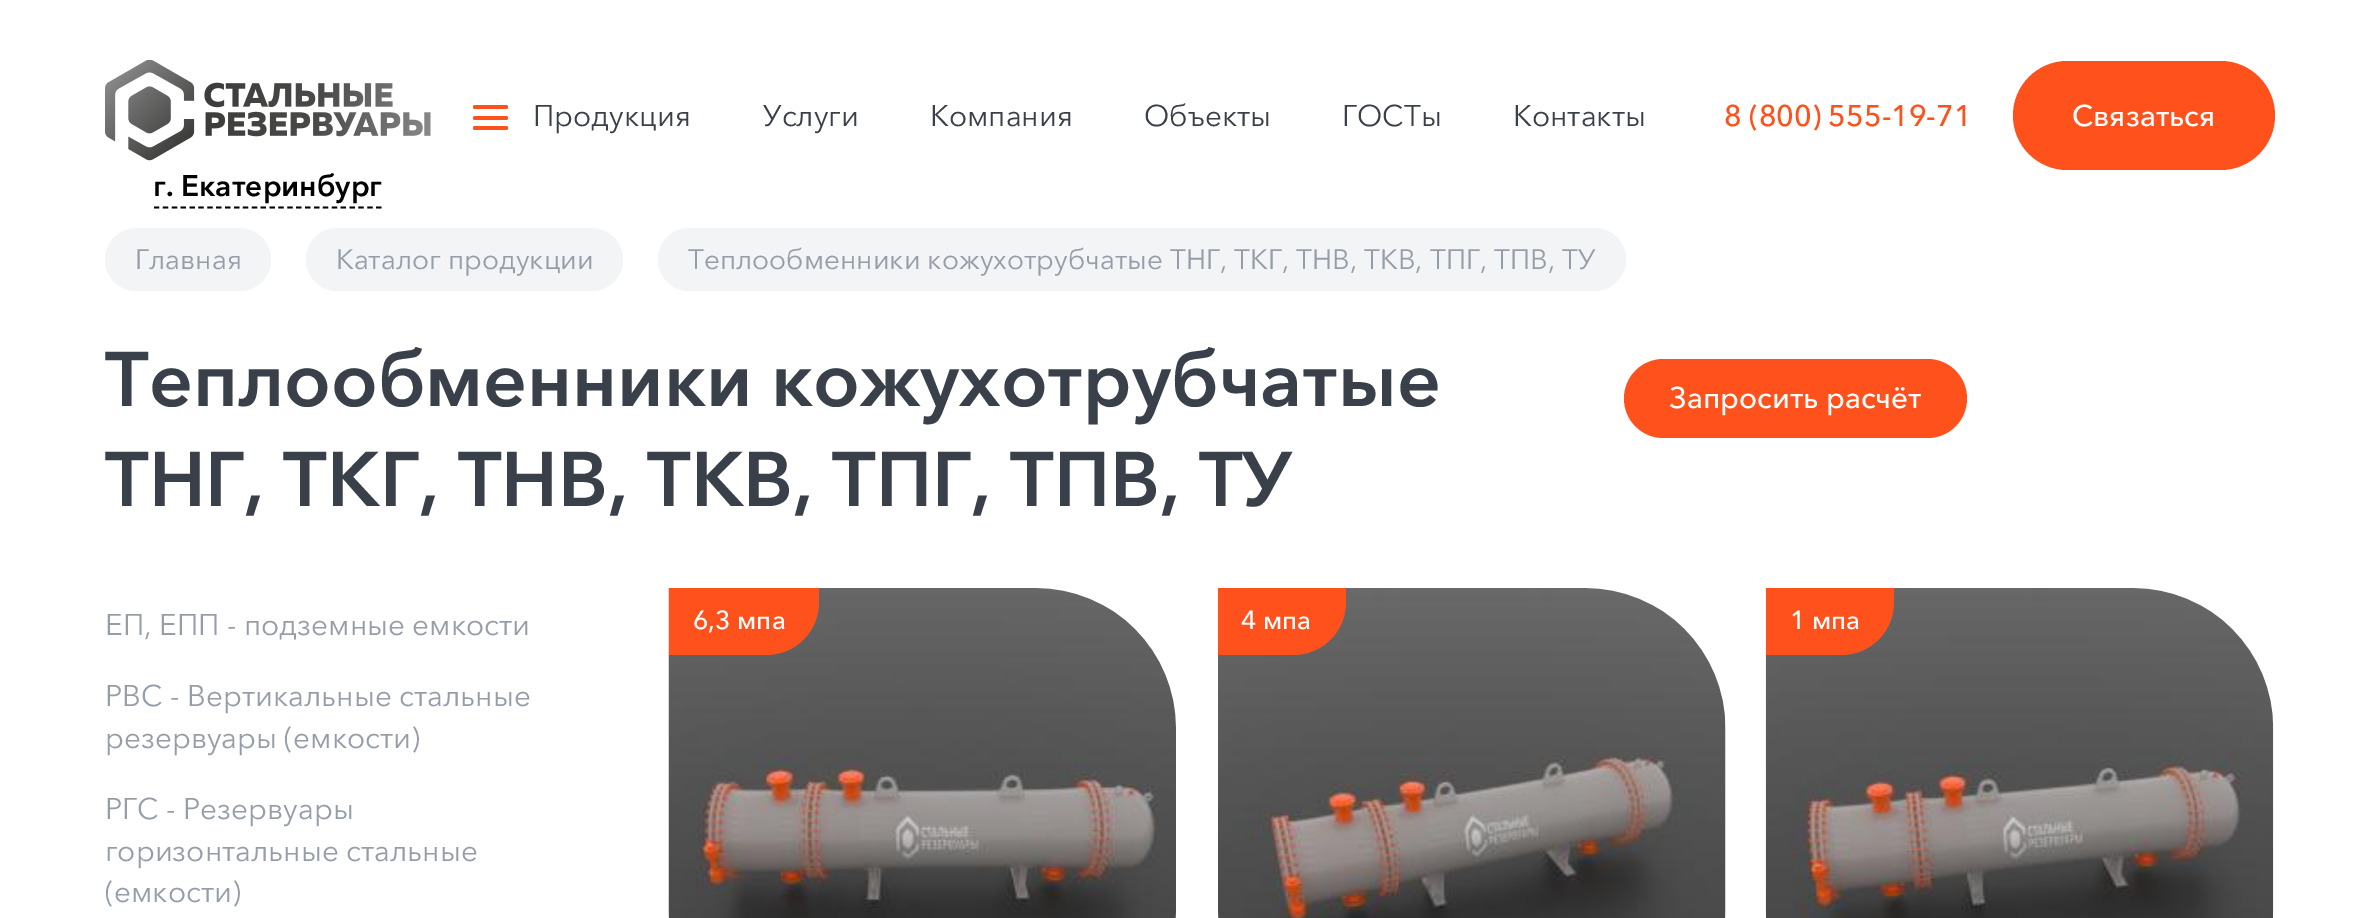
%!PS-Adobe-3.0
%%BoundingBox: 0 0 2380 918
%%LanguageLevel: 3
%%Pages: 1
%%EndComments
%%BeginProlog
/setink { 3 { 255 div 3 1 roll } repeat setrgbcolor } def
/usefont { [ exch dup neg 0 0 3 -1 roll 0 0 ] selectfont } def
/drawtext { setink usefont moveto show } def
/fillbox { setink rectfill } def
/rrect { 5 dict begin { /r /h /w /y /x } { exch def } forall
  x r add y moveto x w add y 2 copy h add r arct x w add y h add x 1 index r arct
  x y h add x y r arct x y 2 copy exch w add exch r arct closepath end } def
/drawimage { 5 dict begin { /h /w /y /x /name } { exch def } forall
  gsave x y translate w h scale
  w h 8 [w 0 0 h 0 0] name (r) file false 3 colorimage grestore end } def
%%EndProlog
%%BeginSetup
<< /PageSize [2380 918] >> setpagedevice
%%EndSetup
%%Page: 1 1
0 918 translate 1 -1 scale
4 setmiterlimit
0 0 2380 918 255 255 255 fillbox
255 81 27 setink
473 116 35 4 2 rrect fill
473 105 35 4 2 rrect fill
473 126 35 4 2 rrect fill
(Продукция) 533 126 /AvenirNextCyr-Regular 29.75 57 64 73 drawtext
(Услуги) 763 126 /AvenirNextCyr-Regular 29.75 57 64 73 drawtext
(Компания) 930 126 /AvenirNextCyr-Regular 29.75 57 64 73 drawtext
(Объекты) 1144 126 /AvenirNextCyr-Regular 29.75 57 64 73 drawtext
(ГОСТы) 1342 126 /AvenirNextCyr-Regular 29.75 57 64 73 drawtext
(Контакты) 1513 126 /AvenirNextCyr-Regular 29.75 57 64 73 drawtext
(8 \(800\) 555-19-71) 1724 126 /AvenirNextCyr-Medium 29.75 255 81 27 drawtext
2013 61 262 109 54.5 rrect fill
(Связаться) 2072 126 /AvenirNextCyr-Medium 29.75 255 255 255 drawtext
(assets/img1.rgb) 105 60 326 101 drawimage
0 0 0 setink
1.8 setlinewidth
[5.25 3.64] 0 setdash
154 207.5 moveto 381.5 207.5 lineto stroke
(г. Екатеринбург) 153 196 /AvenirNextCyr-Bold 29.75 0 0 0 drawtext
242 244 246 setink
105 228 166 63 31.5 rrect fill
(Главная) 135 269 /AvenirNextCyr-Regular 27.95 149 157 168 drawtext
242 244 246 setink
306 228 317 63 31.5 rrect fill
(Каталог продукции) 336 269 /AvenirNextCyr-Regular 27.95 149 157 168 drawtext
242 244 246 setink
658 228 968 63 31.5 rrect fill
(Теплообменники кожухотрубчатые ТНГ, ТКГ, ТНВ, ТКВ, ТПГ, ТПВ, ТУ) 688 269 /AvenirNextCyr-Regular 27.95 149 157 168 drawtext
(Теплообменники кожухотрубчатые) 105 406 /AvenirNextCyr-Bold 76.75 57 64 73 drawtext
(ТНГ, ТКГ, ТНВ, ТКВ, ТПГ, ТПВ, ТУ) 105 506 /AvenirNextCyr-Bold 76.75 57 64 73 drawtext
255 81 27 setink
1624 359 343 79 39.5 rrect fill
(Запросить расчёт) 1669 408 /AvenirNextCyr-Medium 29.75 255 255 255 drawtext
(ЕП, ЕПП - подземные емкости) 105 635 /AvenirNextCyr-Regular 29.75 149 157 168 drawtext
(РВС - Вертикальные стальные) 105 706 /AvenirNextCyr-Regular 29.75 149 157 168 drawtext
(резервуары \(емкости\)) 105 748 /AvenirNextCyr-Regular 29.75 149 157 168 drawtext
(РГС - Резервуары) 105 819 /AvenirNextCyr-Regular 29.75 149 157 168 drawtext
(горизонтальные стальные) 105 861 /AvenirNextCyr-Regular 29.75 149 157 168 drawtext
(\(емкости\)) 105 902 /AvenirNextCyr-Regular 29.75 149 157 168 drawtext
(assets/img2.rgb) 668 588 508 330 drawimage
255 81 27 setink
669 588 moveto 819 588 lineto 819 602 lineto 819 631.5 795.5 655 766 655 curveto 669 655 lineto closepath fill
(6,3 мпа) 693 629 /AvenirNextCyr-Medium 26 255 255 255 drawtext
(assets/img3.rgb) 1218 588 508 330 drawimage
255 81 27 setink
1218 588 moveto 1346 588 lineto 1346 602 lineto 1346 631.5 1322.5 655 1293 655 curveto 1218 655 lineto closepath fill
(4 мпа) 1241 629 /AvenirNextCyr-Medium 26 255 255 255 drawtext
(assets/img4.rgb) 1765 588 509 330 drawimage
255 81 27 setink
1766 588 moveto 1894 588 lineto 1894 602 lineto 1894 631.5 1870.5 655 1841 655 curveto 1766 655 lineto closepath fill
(1 мпа) 1790 629 /AvenirNextCyr-Medium 26 255 255 255 drawtext
showpage
%%EOF
